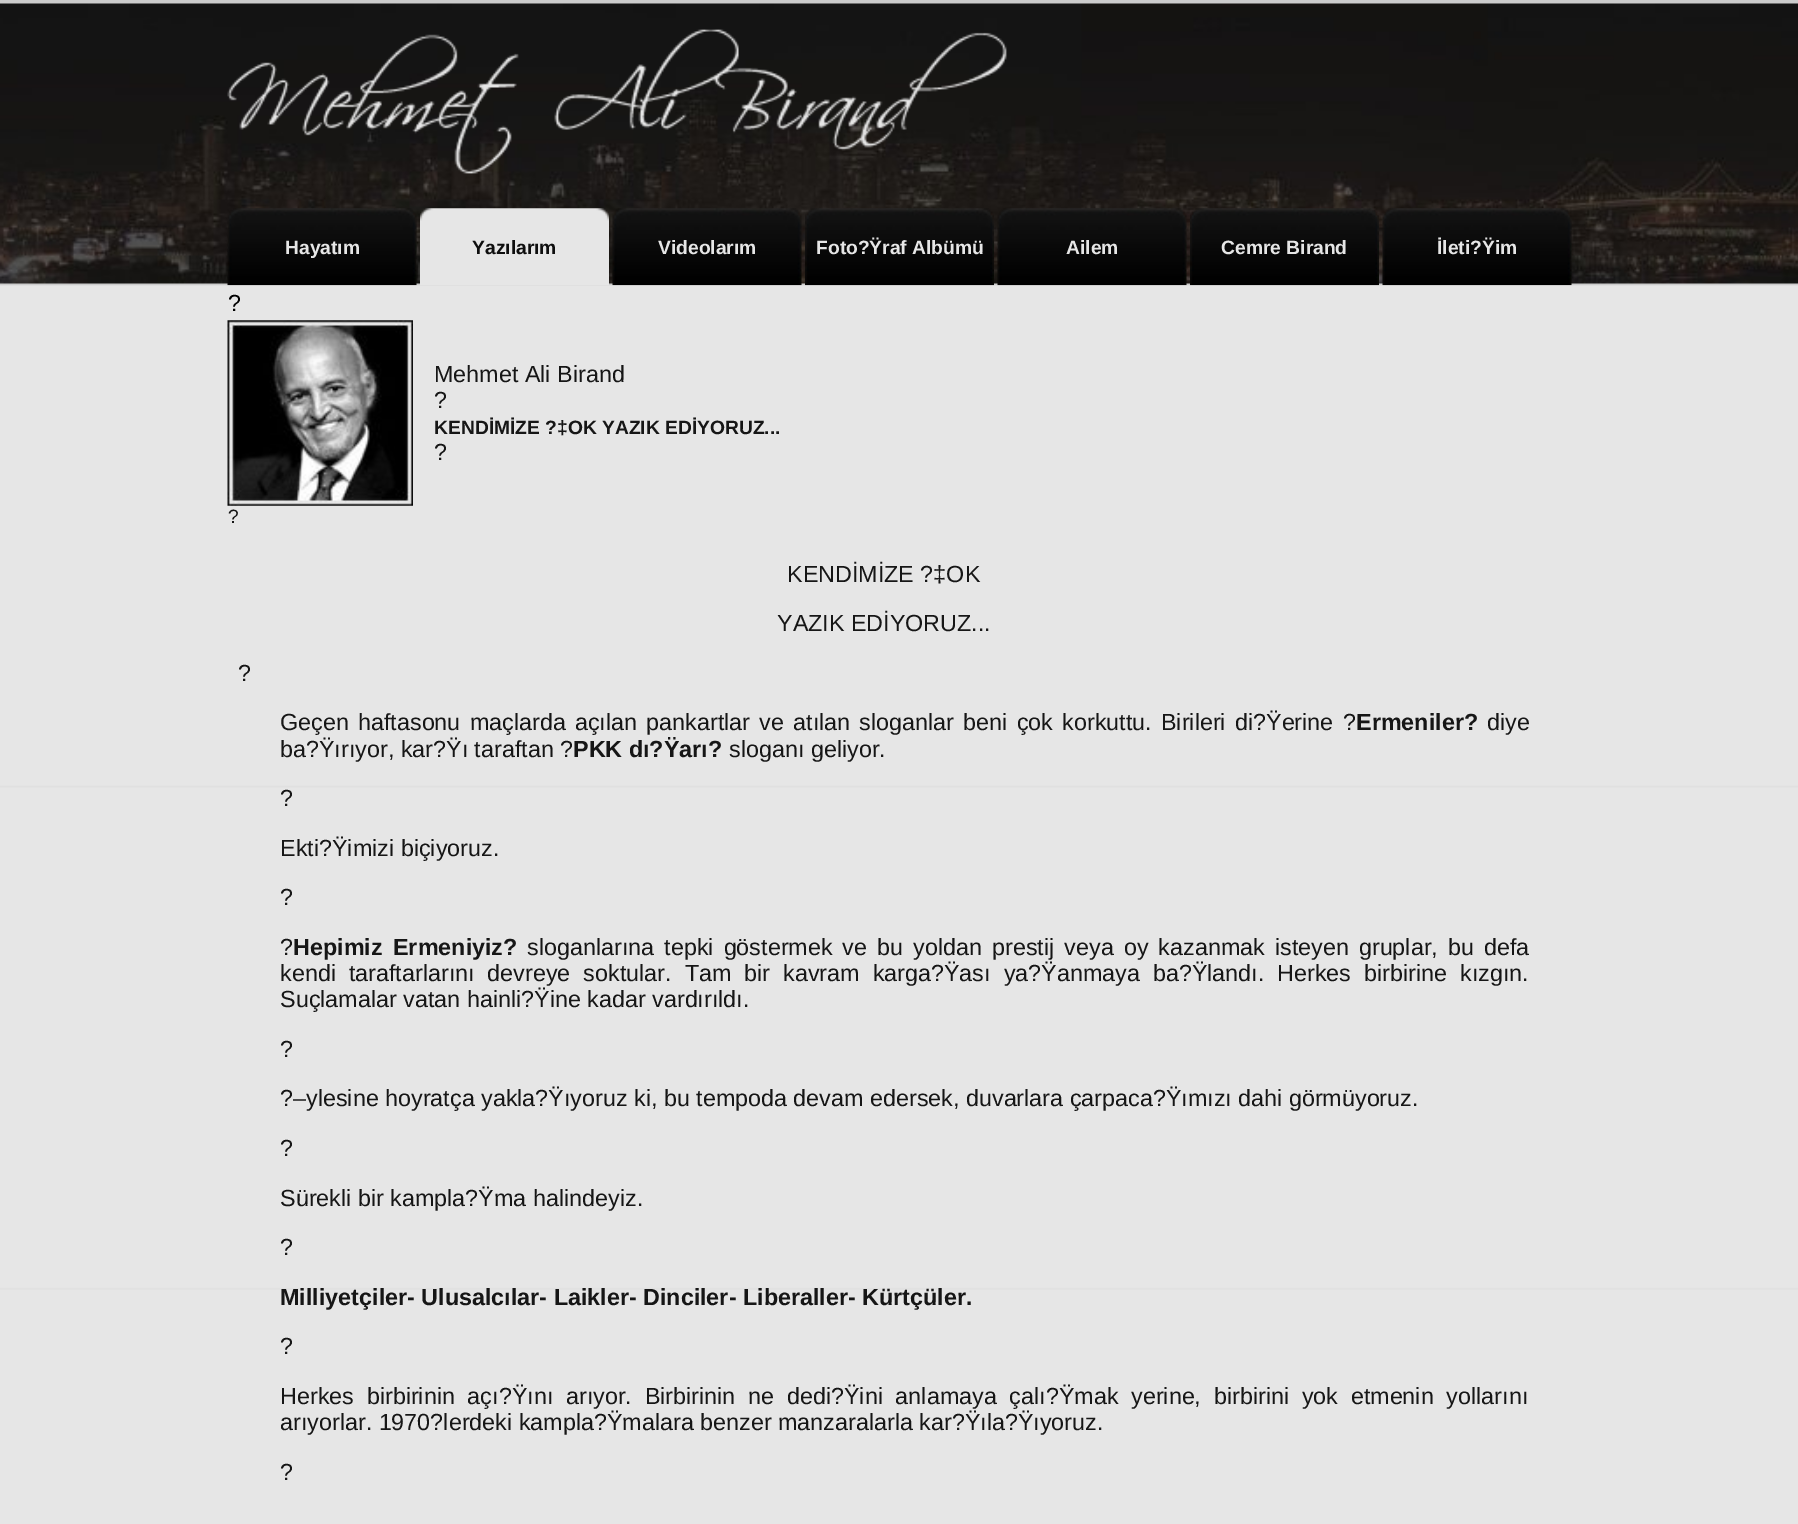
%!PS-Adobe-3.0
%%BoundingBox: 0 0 1798 1524
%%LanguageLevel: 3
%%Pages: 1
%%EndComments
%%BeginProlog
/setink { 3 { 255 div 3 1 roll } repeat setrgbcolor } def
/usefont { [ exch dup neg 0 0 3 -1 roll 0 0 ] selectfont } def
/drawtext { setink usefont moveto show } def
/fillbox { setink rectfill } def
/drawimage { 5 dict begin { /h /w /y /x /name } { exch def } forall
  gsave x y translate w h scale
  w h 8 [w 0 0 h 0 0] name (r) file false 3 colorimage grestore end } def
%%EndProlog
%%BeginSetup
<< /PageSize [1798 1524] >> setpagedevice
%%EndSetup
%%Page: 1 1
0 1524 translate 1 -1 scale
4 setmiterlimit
0 0 1798 1524 204 204 204 fillbox
(assets/img1.rgb) 0 3 1798 281 drawimage
(assets/img2.rgb) 227 29 780 145 drawimage
(assets/img3.rgb) 227 208 190 78 drawimage
(Hayatım) 285 254 /LiberationSans-Bold 19.25 230 230 230 drawtext
(assets/img4.rgb) 420 208 189 78 drawimage
(Yazılarım) 472 254 /LiberationSans-Bold 19.25 14 14 14 drawtext
(assets/img5.rgb) 612 208 190 78 drawimage
(Videolarım) 658 254 /LiberationSans-Bold 19.25 230 230 230 drawtext
(assets/img6.rgb) 805 208 189 78 drawimage
(Foto?Ÿraf Albümü) 816 254 /LiberationSans-Bold 19.25 230 230 230 drawtext
(assets/img7.rgb) 997 208 190 78 drawimage
(Ailem) 1066 254 /LiberationSans-Bold 19.25 230 230 230 drawtext
(assets/img8.rgb) 1190 208 189 78 drawimage
(Cemre Birand) 1221 254 /LiberationSans-Bold 19.25 230 230 230 drawtext
(assets/img9.rgb) 1382 208 190 78 drawimage
(İleti?Ÿim) 1437 254 /LiberationSans-Bold 19.25 230 230 230 drawtext
(assets/img10.rgb) 0 285 1798 1239 drawimage
(?) 228 311 /LiberationSans-Regular 23.33 0 0 0 drawtext
(assets/img11.rgb) 227 320 186 186 drawimage
(Mehmet Ali Birand) 434 382 /LiberationSans-Regular 23.33 22 22 22 drawtext
(?) 434 408 /LiberationSans-Regular 23.33 22 22 22 drawtext
(KENDİMİZE ?‡OK YAZIK EDİYORUZ...) 434 434 /LiberationSans-Bold 19.25 22 22 22 drawtext
(?) 434 460 /LiberationSans-Regular 23.33 22 22 22 drawtext
(?) 228 523 /LiberationSans-Regular 19.25 22 22 22 drawtext
(KENDİMİZE ?‡OK) 787 582 /LiberationSans-Regular 23.33 22 22 22 drawtext
(YAZIK EDİYORUZ...) 777 631 /LiberationSans-Regular 23.33 22 22 22 drawtext
(?) 238 681 /LiberationSans-Regular 23.33 22 22 22 drawtext
280 730 moveto 2.75 0 32 (Geçen haftasonu maçlarda açılan pankartlar ve atılan sloganlar beni çok korkuttu. Birileri di?Ÿerine ?) widthshow
(Ermeniler?) 1356 730 /LiberationSans-Bold 23.33 22 22 22 drawtext
(diye) 1487 730 /LiberationSans-Regular 23.33 22 22 22 drawtext
(ba?Ÿırıyor, kar?Ÿı taraftan ?) 280 757 /LiberationSans-Regular 23.33 22 22 22 drawtext
(PKK dı?Ÿarı?) 573 757 /LiberationSans-Bold 23.33 22 22 22 drawtext
(sloganı geliyor.) 729 757 /LiberationSans-Regular 23.33 22 22 22 drawtext
(?) 280 806 /LiberationSans-Regular 23.33 22 22 22 drawtext
(Ekti?Ÿimizi biçiyoruz.) 280 856 /LiberationSans-Regular 23.33 22 22 22 drawtext
(?) 280 905 /LiberationSans-Regular 23.33 22 22 22 drawtext
(?) 280 955 /LiberationSans-Regular 23.33 22 22 22 drawtext
/LiberationSans-Bold 23.33 usefont
293 955 moveto 4 0 32 (Hepimiz Ermeniyiz?) widthshow
/LiberationSans-Regular 23.33 usefont
527 955 moveto 3.6 0 32 (sloganlarına tepki göstermek ve bu yoldan prestij veya oy kazanmak isteyen gruplar, bu defa) widthshow
280 981 moveto 6.5 0 32 (kendi taraftarlarını devreye soktular. Tam bir kavram karga?Ÿası ya?Ÿanmaya ba?Ÿlandı. Herkes birbirine kızgın.) widthshow
(Suçlamalar vatan hainli?Ÿine kadar vardırıldı.) 280 1007 /LiberationSans-Regular 23.33 22 22 22 drawtext
(?) 280 1057 /LiberationSans-Regular 23.33 22 22 22 drawtext
(?–ylesine hoyratça yakla?Ÿıyoruz ki, bu tempoda devam edersek, duvarlara çarpaca?Ÿımızı dahi görmüyoruz.) 280 1106 /LiberationSans-Regular 23.33 22 22 22 drawtext
(?) 280 1156 /LiberationSans-Regular 23.33 22 22 22 drawtext
(Sürekli bir kampla?Ÿma halindeyiz.) 280 1206 /LiberationSans-Regular 23.33 22 22 22 drawtext
(?) 280 1255 /LiberationSans-Regular 23.33 22 22 22 drawtext
(Milliyetçiler- Ulusalcılar- Laikler- Dinciler- Liberaller- Kürtçüler.) 280 1305 /LiberationSans-Bold 23.33 22 22 22 drawtext
(?) 280 1354 /LiberationSans-Regular 23.33 22 22 22 drawtext
280 1404 moveto 6.25 0 32 (Herkes birbirinin açı?Ÿını arıyor. Birbirinin ne dedi?Ÿini anlamaya çalı?Ÿmak yerine, birbirini yok etmenin yollarını) widthshow
(arıyorlar. 1970?lerdeki kampla?Ÿmalara benzer manzaralarla kar?Ÿıla?Ÿıyoruz.) 280 1430 /LiberationSans-Regular 23.33 22 22 22 drawtext
(?) 280 1480 /LiberationSans-Regular 23.33 22 22 22 drawtext
showpage
%%EOF
